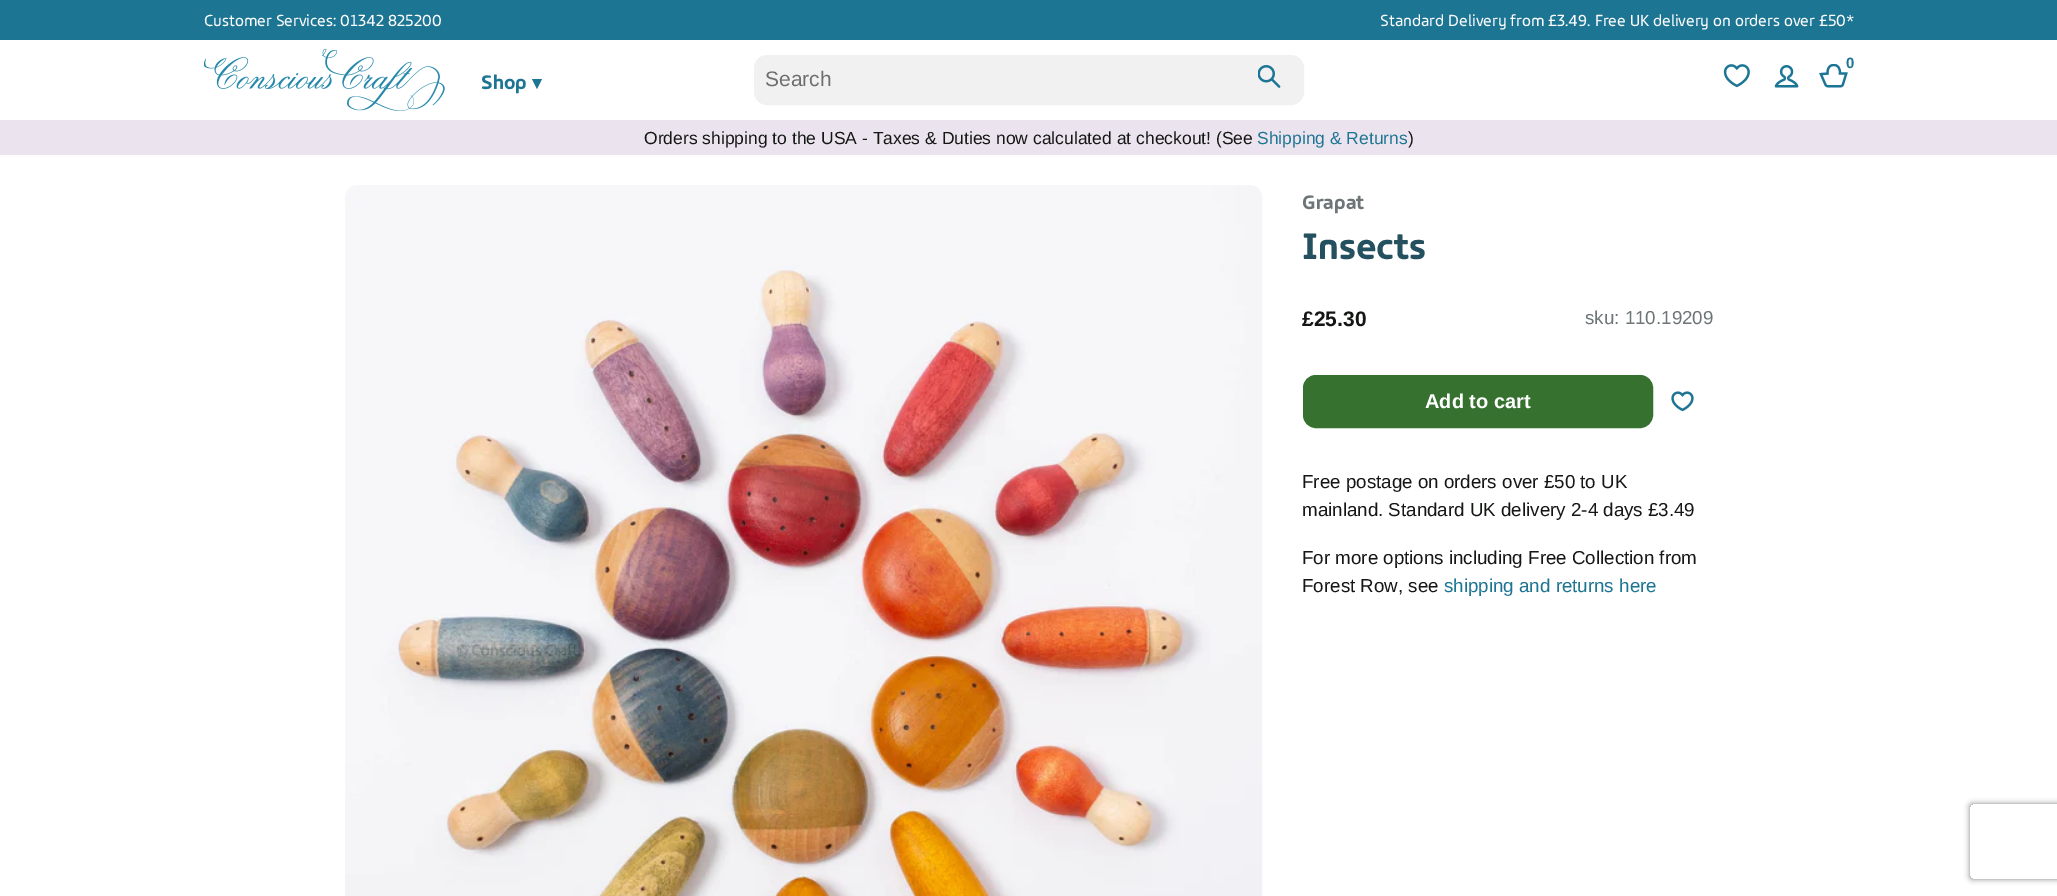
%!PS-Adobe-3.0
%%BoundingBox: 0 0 2057 896
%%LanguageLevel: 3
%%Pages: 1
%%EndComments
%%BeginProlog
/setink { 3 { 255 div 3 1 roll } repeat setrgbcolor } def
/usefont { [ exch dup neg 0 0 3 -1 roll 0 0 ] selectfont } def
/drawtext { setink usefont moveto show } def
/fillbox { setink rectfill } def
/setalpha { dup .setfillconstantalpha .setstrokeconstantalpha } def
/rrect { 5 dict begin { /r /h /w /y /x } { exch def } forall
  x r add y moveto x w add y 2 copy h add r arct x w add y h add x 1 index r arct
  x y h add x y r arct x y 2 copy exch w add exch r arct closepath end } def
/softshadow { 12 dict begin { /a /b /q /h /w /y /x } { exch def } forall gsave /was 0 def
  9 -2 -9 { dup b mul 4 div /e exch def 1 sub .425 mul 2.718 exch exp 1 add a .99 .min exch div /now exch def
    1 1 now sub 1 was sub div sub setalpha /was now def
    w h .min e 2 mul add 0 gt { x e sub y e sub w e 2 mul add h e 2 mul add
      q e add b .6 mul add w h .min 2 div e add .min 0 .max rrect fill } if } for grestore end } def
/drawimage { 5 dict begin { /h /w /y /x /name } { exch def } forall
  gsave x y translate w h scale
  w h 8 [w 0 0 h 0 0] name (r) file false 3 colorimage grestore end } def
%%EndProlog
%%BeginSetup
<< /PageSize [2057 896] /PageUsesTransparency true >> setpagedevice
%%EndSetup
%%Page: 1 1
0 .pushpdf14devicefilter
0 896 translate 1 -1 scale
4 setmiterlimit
0 0 2057 896 255 255 255 fillbox
0 0 2057 40 29 117 148 fillbox
(Customer Services: 01342 825200) 204 26 /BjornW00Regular-Regular 16.4 255 255 255 drawtext
(Standard Delivery from £3.49. Free UK delivery on orders over £50*) 1380 26 /BjornW00Regular-Regular 16.4 255 255 255 drawtext
(assets/img1.rgb) 204 49 241 62 drawimage
(assets/img2.rgb) 1723 64 27 24 drawimage
(assets/img3.rgb) 1774 65 25 23 drawimage
(assets/img4.rgb) 1819 64 29 24 drawimage
(0) 1846 68 /LiberationSans-Bold 15 29 117 148 drawtext
(Shop) 481 89 /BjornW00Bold-Bold 20 29 117 148 drawtext
537 89 moveto 532 79 lineto 542 79 lineto closepath eofill
241 241 241 setink
754.5 55.5 549 49 12.5 rrect gsave fill grestore
stroke
(Search) 765 86 /LiberationSans-Regular 21 109 110 109 drawtext
(assets/img5.rgb) 1258 65 23 23 drawimage
0 120 2057 35 235 227 238 fillbox
(Orders shipping to the USA - Taxes & Duties now calculated at checkout! \(See) 644 144 /LiberationSans-Regular 17.5 21 23 21 drawtext
(Shipping & Returns) 1257 144 /LiberationSans-Regular 17.5 29 117 148 drawtext
(\)) 1408 144 /LiberationSans-Regular 17.5 21 23 21 drawtext
(assets/img6.rgb) 345 185 918 711 drawimage
(Grapat) 1302 209 /BjornW00Bold-Bold 20 109 117 119 drawtext
(Insects) 1302 259 /BjornW00Bold-Bold 37.5 36 80 95 drawtext
(£25.30) 1302 326 /LiberationSans-Bold 21 21 23 21 drawtext
(sku: 110.19209) 1585 324 /LiberationSans-Regular 18.75 109 117 119 drawtext
54 113 48 setink
1303.5 375.5 349 52 12.5 rrect gsave fill grestore
stroke
(Add to cart) 1425 408 /LiberationSans-Bold 20 255 255 255 drawtext
(assets/img7.rgb) 1671 391 23 21 drawimage
(Free postage on orders over £50 to UK) 1302 488 /LiberationSans-Regular 18.75 21 23 21 drawtext
(mainland. Standard UK delivery 2-4 days £3.49) 1302 516 /LiberationSans-Regular 18.75 21 23 21 drawtext
(For more options including Free Collection from) 1302 564 /LiberationSans-Regular 18.75 21 23 21 drawtext
(Forest Row, see) 1302 592 /LiberationSans-Regular 18.75 21 23 21 drawtext
(shipping and returns here) 1444 592 /LiberationSans-Regular 18.75 29 117 148 drawtext
gsave
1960 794 moveto 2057 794 lineto 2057 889 lineto 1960 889 lineto closepath 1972.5 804 moveto 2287.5 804 lineto 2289 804 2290 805 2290 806.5 curveto 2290 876.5 lineto 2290 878 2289 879 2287.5 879 curveto 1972.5 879 lineto 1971 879 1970 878 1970 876.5 curveto 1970 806.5 lineto 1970 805 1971 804 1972.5 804 curveto closepath eoclip newpath
128 128 128 setink
1970 804 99 75 2.5 3 1 softshadow
grestore
.poppdf14devicefilter showpage
%%EOF
